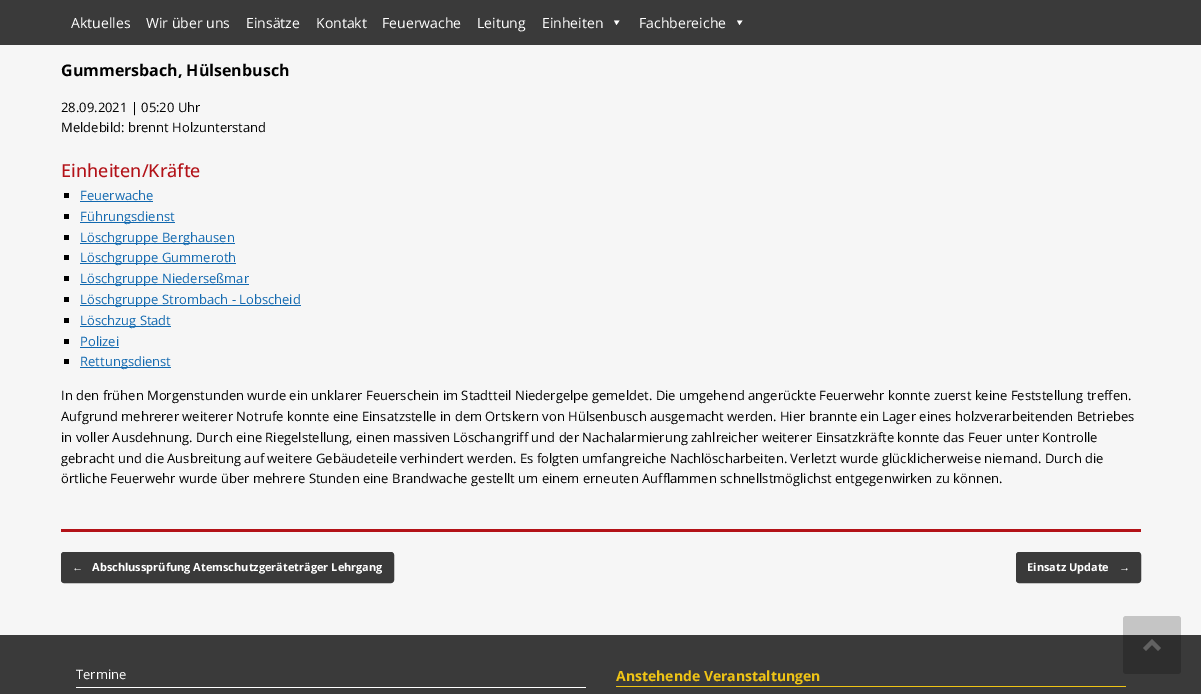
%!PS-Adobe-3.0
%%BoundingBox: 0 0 1201 694
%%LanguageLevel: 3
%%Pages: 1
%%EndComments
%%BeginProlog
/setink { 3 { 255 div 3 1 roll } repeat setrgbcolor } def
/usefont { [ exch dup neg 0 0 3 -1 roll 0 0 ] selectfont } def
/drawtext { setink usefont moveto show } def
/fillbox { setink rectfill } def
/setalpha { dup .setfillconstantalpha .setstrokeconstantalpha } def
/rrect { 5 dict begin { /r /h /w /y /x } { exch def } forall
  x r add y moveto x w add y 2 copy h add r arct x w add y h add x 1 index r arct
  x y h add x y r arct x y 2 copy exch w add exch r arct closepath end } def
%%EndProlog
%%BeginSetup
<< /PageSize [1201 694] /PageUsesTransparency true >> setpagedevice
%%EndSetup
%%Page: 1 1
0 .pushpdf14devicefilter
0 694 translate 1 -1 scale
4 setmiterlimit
0 0 1201 694 58 58 58 fillbox
(Aktuelles) 71 28 /OpenSans-Regular 14 255 255 255 drawtext
(Wir über uns) 146 28 /OpenSans-Regular 14 255 255 255 drawtext
(Einsätze) 246 28 /OpenSans-Regular 14 255 255 255 drawtext
(Kontakt) 316 28 /OpenSans-Regular 14 255 255 255 drawtext
(Feuerwache) 382 28 /OpenSans-Regular 14 255 255 255 drawtext
(Leitung) 477 28 /OpenSans-Regular 14 255 255 255 drawtext
(Einheiten) 542 28 /OpenSans-Regular 14 255 255 255 drawtext
619.5 20.5 moveto 616.5 25 lineto 614 20.5 lineto closepath fill
(Fachbereiche) 639 28 /OpenSans-Regular 14 255 255 255 drawtext
742.5 20.5 moveto 739.5 25 lineto 737 20.5 lineto closepath fill
0 45 1201 590 246 246 246 fillbox
61 529 1080 3 179 18 24 fillbox
(Gummersbach, Hülsenbusch) 61 76 /OpenSans-Bold 16 0 0 0 drawtext
(28.09.2021 | 05:20 Uhr) 61 112 /OpenSans-Regular 13 0 0 0 drawtext
(Meldebild: brennt Holzunterstand) 61 132 /OpenSans-Regular 13 0 0 0 drawtext
(Einheiten/Kräfte) 61 177 /OpenSans-Medium 18 179 18 24 drawtext
64 193 5 5 0 0 0 fillbox
(Feuerwache) 80 200 /OpenSans-Regular 13 18 105 176 drawtext
80 201 73 1 18 105 176 fillbox
64 214 5 5 0 0 0 fillbox
80 222 95 1 18 105 176 fillbox
(Führungsdienst) 80 221 /OpenSans-Regular 13 18 105 176 drawtext
64 235 5 5 0 0 0 fillbox
80 243 155 1 18 105 176 fillbox
(Löschgruppe Berghausen) 80 242 /OpenSans-Regular 13 18 105 176 drawtext
64 255 5 5 0 0 0 fillbox
80 263 156 1 18 105 176 fillbox
(Löschgruppe Gummeroth) 80 262 /OpenSans-Regular 13 18 105 176 drawtext
64 276 5 5 0 0 0 fillbox
80 284 169 1 18 105 176 fillbox
(Löschgruppe Niederseßmar) 80 283 /OpenSans-Regular 13 18 105 176 drawtext
64 297 5 5 0 0 0 fillbox
80 305 221 1 18 105 176 fillbox
(Löschgruppe Strombach - Lobscheid) 80 304 /OpenSans-Regular 13 18 105 176 drawtext
64 318 5 5 0 0 0 fillbox
80 326 91 1 18 105 176 fillbox
(Löschzug Stadt) 80 325 /OpenSans-Regular 13 18 105 176 drawtext
64 339 5 5 0 0 0 fillbox
(Polizei) 80 346 /OpenSans-Regular 13 18 105 176 drawtext
80 347 39 1 18 105 176 fillbox
64 359 5 5 0 0 0 fillbox
80 367 91 1 18 105 176 fillbox
(Rettungsdienst) 80 366 /OpenSans-Regular 13 18 105 176 drawtext
(In den frühen Morgenstunden wurde ein unklarer Feuerschein im Stadtteil Niedergelpe gemeldet. Die umgehend angerückte Feuerwehr konnte zuerst keine Feststellung treffen.) 61 400 /OpenSans-Regular 13 0 0 0 drawtext
(Aufgrund mehrerer weiterer Notrufe konnte eine Einsatzstelle in dem Ortskern von Hülsenbusch ausgemacht werden. Hier brannte ein Lager eines holzverarbeitenden Betriebes) 61 421 /OpenSans-Regular 13 0 0 0 drawtext
(in voller Ausdehnung. Durch eine Riegelstellung, einen massiven Löschangriff und der Nachalarmierung zahlreicher weiterer Einsatzkräfte konnte das Feuer unter Kontrolle) 61 442 /OpenSans-Regular 13 0 0 0 drawtext
(gebracht und die Ausbreitung auf weitere Gebäudeteile verhindert werden. Es folgten umfangreiche Nachlöscharbeiten. Verletzt wurde glücklicherweise niemand. Durch die) 61 463 /OpenSans-Regular 13 0 0 0 drawtext
(örtliche Feuerwehr wurde über mehrere Stunden eine Brandwache gestellt um einem erneuten Aufflammen schnellstmöglichst entgegenwirken zu können.) 61 483 /OpenSans-Regular 13 0 0 0 drawtext
58 58 58 setink
61.5 552.5 332 30 2.5 rrect gsave fill grestore
stroke
(←) 72 571 /LiberationSans-Bold 11 255 255 255 drawtext
(Abschlussprüfung Atemschutzgeräteträger Lehrgang) 92 571 /OpenSans-Bold 11 255 255 255 drawtext
58 58 58 setink
1016.5 552.5 124 30 2.5 rrect gsave fill grestore
stroke
(Einsatz Update) 1027 571 /OpenSans-Bold 11 255 255 255 drawtext
(→) 1119 571 /LiberationSans-Bold 11 255 255 255 drawtext
76 687 510 1 255 255 255 fillbox
(Termine) 76 679 /OpenSans-Regular 13 255 255 255 drawtext
616 686 510 1 239 196 21 fillbox
(Anstehende Veranstaltungen) 616 681 /OpenSans-Bold 14 239 196 21 drawtext
0.2 setalpha
0 0 0 setink
1123 616 58 58 3 rrect fill
1 setalpha
97 97 97 setink
1161 648 moveto 1152 639 lineto 1143 648 lineto 1146 651 lineto 1152 645 lineto 1158 651 lineto closepath fill
.poppdf14devicefilter showpage
%%EOF
